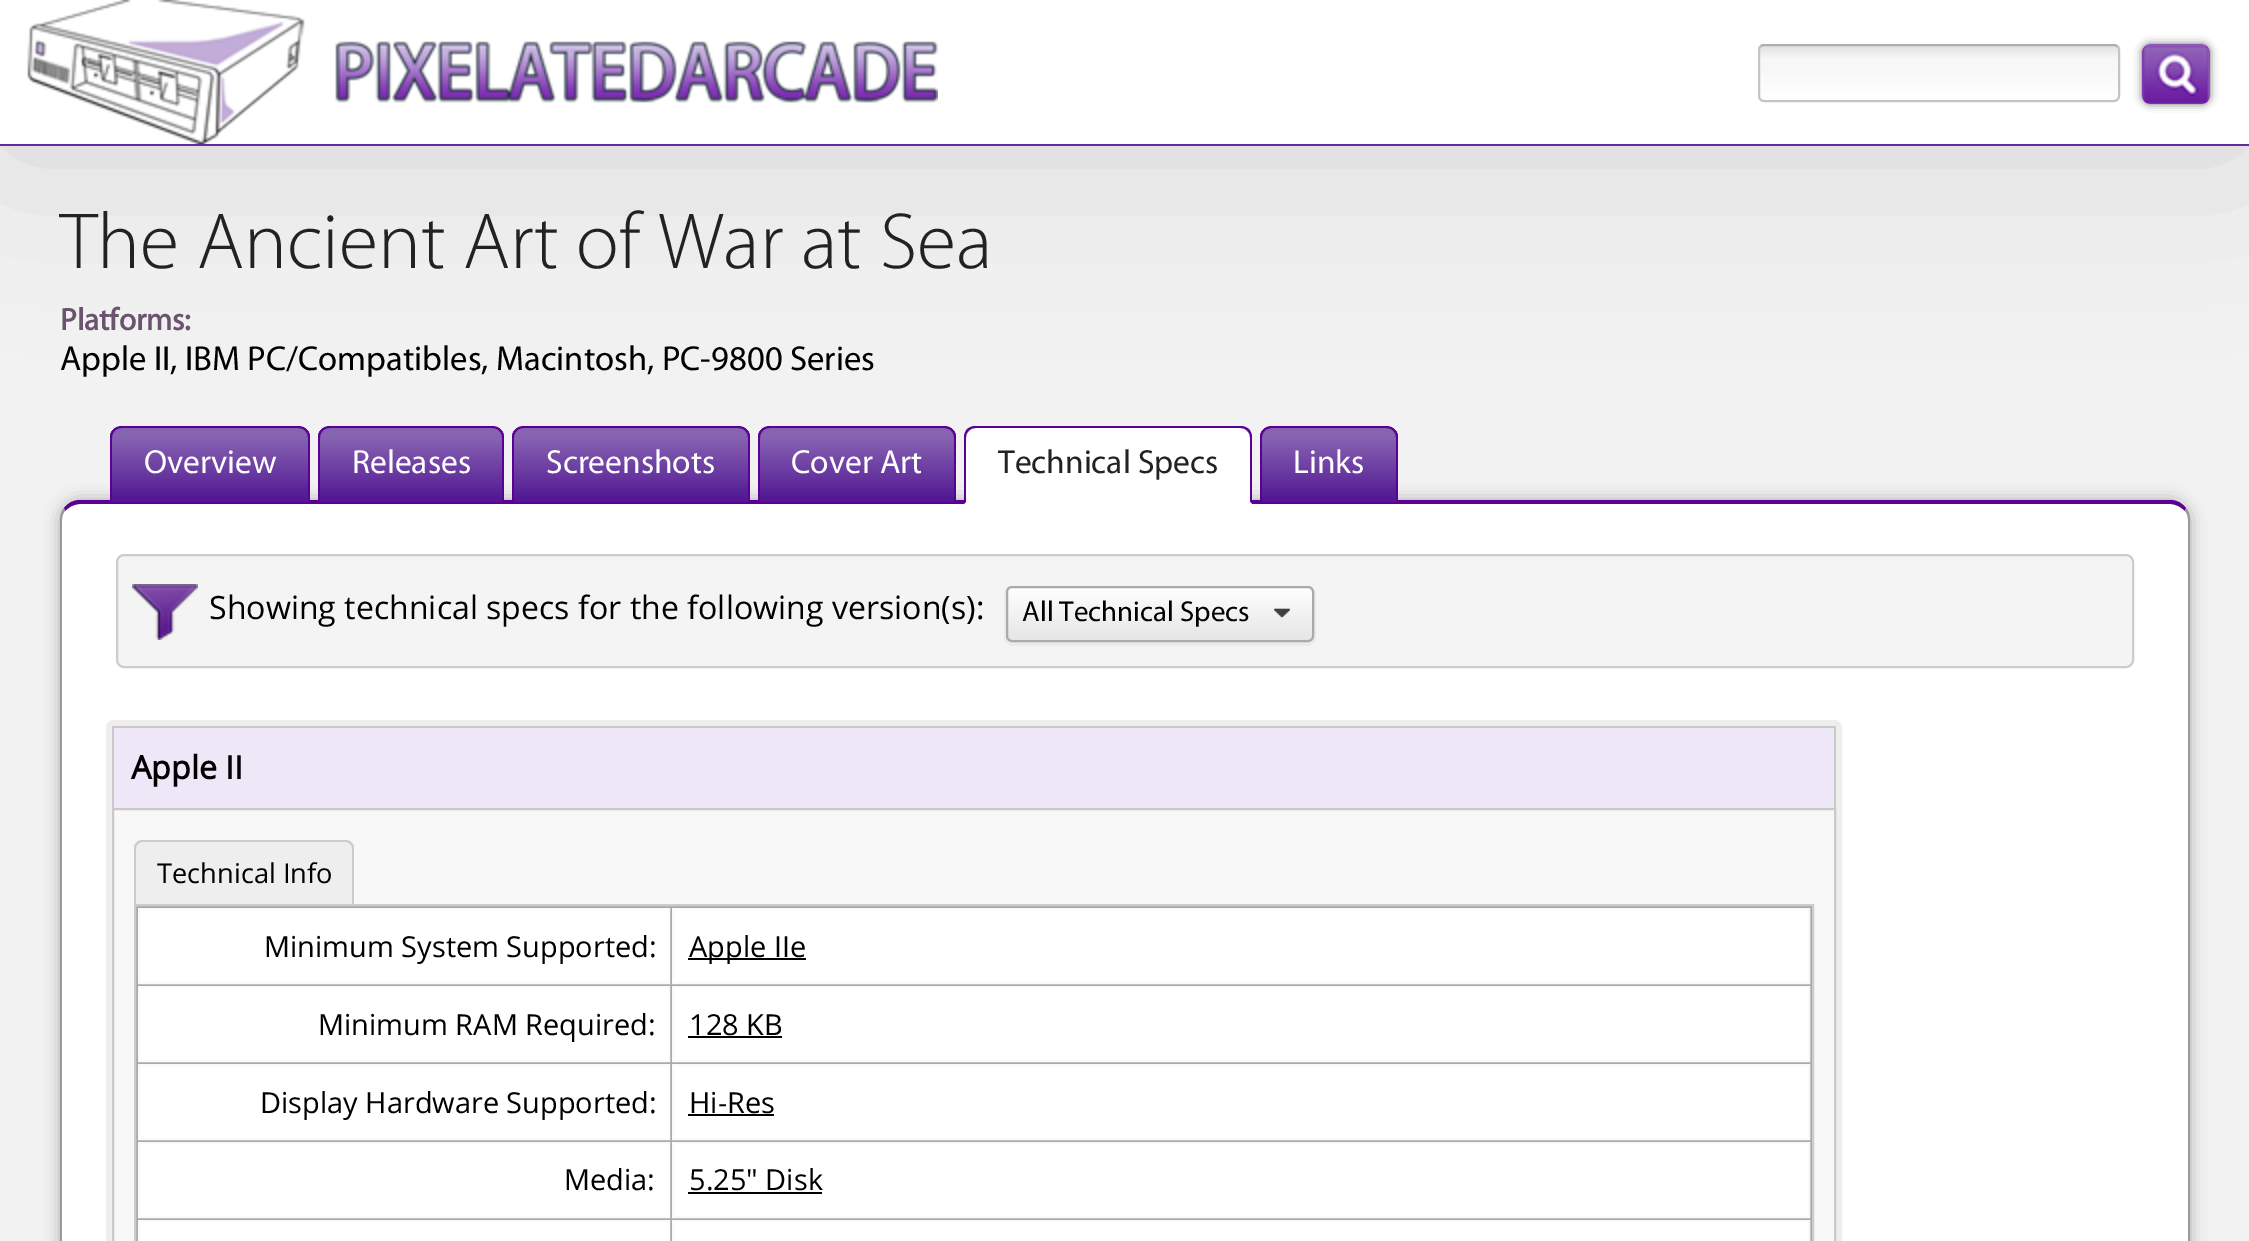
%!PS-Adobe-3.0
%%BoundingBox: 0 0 2249 1241
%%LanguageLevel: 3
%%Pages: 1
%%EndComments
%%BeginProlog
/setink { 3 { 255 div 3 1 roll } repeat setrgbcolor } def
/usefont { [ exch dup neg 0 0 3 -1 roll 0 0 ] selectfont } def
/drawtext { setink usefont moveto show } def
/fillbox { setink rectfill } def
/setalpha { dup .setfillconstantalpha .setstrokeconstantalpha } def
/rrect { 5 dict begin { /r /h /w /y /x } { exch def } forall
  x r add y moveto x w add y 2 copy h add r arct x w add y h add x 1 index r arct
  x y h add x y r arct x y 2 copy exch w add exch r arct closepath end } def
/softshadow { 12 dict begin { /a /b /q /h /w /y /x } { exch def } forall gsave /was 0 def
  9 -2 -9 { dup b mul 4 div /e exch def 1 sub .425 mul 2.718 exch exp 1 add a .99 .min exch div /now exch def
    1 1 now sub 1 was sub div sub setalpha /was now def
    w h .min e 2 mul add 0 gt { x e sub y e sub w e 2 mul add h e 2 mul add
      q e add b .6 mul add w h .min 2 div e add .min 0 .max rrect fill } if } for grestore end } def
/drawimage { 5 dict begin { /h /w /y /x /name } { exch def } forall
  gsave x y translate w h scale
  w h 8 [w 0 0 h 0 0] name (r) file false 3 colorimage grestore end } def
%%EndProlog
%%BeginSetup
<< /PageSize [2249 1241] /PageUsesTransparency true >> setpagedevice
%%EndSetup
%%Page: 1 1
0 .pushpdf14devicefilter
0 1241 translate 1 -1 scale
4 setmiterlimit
0 0 2249 1241 242 242 242 fillbox
107 83 112 setink
0 0 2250 146 0 94 0.22 softshadow
0 0 2249 144 255 255 255 fillbox
0 144 2249 2 99 44 156 fillbox
(assets/img1.rgb) 27 0 911 144 drawimage
gsave
1758 44 362 58 6 rrect clip newpath
gsave 1758 46 moveto 2120 46 lineto 2120 100 lineto 1758 100 lineto closepath clip newpath
<< /ShadingType 2 /ColorSpace /DeviceRGB /Coords [1939 46 1939 100] /Extend [true true] /Function << /FunctionType 3 /Domain [0 1] /Functions [<< /FunctionType 2 /Domain [0 1] /C0 [0.89 0.89 0.89] /C1 [0.89 0.89 0.89] /N 1 >> << /FunctionType 2 /Domain [0 1] /C0 [0.89 0.89 0.89] /C1 [0.969 0.969 0.969] /N 1 >> << /FunctionType 2 /Domain [0 1] /C0 [0.969 0.969 0.969] /C1 [0.969 0.969 0.969] /N 1 >> << /FunctionType 2 /Domain [0 1] /C0 [0.969 0.969 0.969] /C1 [1 1 1] /N 1 >>] /Bounds [0.02 0.23 0.35] /Encode [0 1 0 1 0 1 0 1] >> >> shfill grestore
grestore
174 174 174 setink
2 setlinewidth
1760.5 46.5 moveto 1761.5 45.5 1762.5 45 1764 45 curveto 2114 45 lineto 2115.5 45 2116.5 45.5 2117.5 46.5 curveto stroke
196 196 196 setink
2117.5 46.5 moveto 2118.5 47.5 2119 48.5 2119 50 curveto 2119 96 lineto 2119 97.5 2118.5 98.5 2117.5 99.5 curveto stroke
195 195 195 setink
2117.5 99.5 moveto 2116.5 100.5 2115.5 101 2114 101 curveto 1764 101 lineto 1762.5 101 1761.5 100.5 1760.5 99.5 curveto stroke
197 197 197 setink
1760.5 99.5 moveto 1759.5 98.5 1759 97.5 1759 96 curveto 1759 50 lineto 1759 48.5 1759.5 47.5 1760.5 46.5 curveto stroke
gsave
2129 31 moveto 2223 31 lineto 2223 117 lineto 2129 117 lineto closepath 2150 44 moveto 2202 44 lineto 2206.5 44 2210 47.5 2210 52 curveto 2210 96 lineto 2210 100.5 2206.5 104 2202 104 curveto 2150 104 lineto 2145.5 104 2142 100.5 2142 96 curveto 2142 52 lineto 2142 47.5 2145.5 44 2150 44 curveto closepath eoclip newpath
0 0 0 setink
2142 44 68 60 8 4 0.55 softshadow
grestore
(assets/img2.rgb) 2142 44 68 60 drawimage
(The Ancient Art of War at Sea) 60 268 /Myriad-Light 80.2 34 34 34 drawtext
(Platforms:) 60 330 /Myriad-Bold 31.25 107 83 112 drawtext
(Apple II, IBM PC/Compatibles, Macintosh, PC-9800 Series) 60 370 /Myriad-Regular 34.75 0 0 0 drawtext
60 500 2130 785 20 8 0.29 softshadow
255 255 255 setink
80 504 moveto 2170 504 lineto 2180 504 2188 511 2188 520 curveto 2188 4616 lineto 2188 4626 2180 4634 2170 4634 curveto 80 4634 lineto 70 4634 62 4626 62 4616 curveto 62 520 lineto 62 511 70 504 80 504 curveto closepath fill
90 0 149 setink
80 500 moveto 73 500 68 503 64 508 curveto 65 511 lineto 69 507 74 504 80 504 curveto 2170 504 lineto 2176 504 2181 507 2185 511 curveto 2186 508 lineto 2182 503 2177 500 2170 500 curveto closepath fill
gsave
122 426 moveto 298 426 lineto 304.5 426 310 431.5 310 438 curveto 310 502 lineto 110 502 lineto 110 438 lineto 110 431.5 115.5 426 122 426 curveto closepath clip newpath
gsave 110 428 moveto 310 428 lineto 310 502 lineto 110 502 lineto closepath clip newpath
<< /ShadingType 2 /ColorSpace /DeviceRGB /Coords [210 428 210 502] /Extend [true true] /Function << /FunctionType 3 /Domain [0 1] /Functions [<< /FunctionType 2 /Domain [0 1] /C0 [0.529 0.392 0.694] /C1 [0.529 0.392 0.694] /N 1 >> << /FunctionType 2 /Domain [0 1] /C0 [0.529 0.392 0.694] /C1 [0.322 0.094 0.58] /N 1 >> << /FunctionType 2 /Domain [0 1] /C0 [0.322 0.094 0.58] /C1 [0.322 0.094 0.58] /N 1 >>] /Bounds [0.12 0.97] /Encode [0 1 0 1 0 1] >> >> shfill grestore
grestore
122 426 moveto 298 426 lineto 305 426 310 431 310 438 curveto 310 502 lineto 110 502 lineto 110 438 lineto 110 431 115 426 122 426 curveto closepath 122 428 moveto 298 428 lineto 304 428 308 432 308 438 curveto 308 502 lineto 112 502 lineto 112 438 lineto 112 432 116 428 122 428 curveto closepath eofill
(Overview) 144 473 /Myriad-Regular 33.5 255 255 255 drawtext
gsave
330 426 moveto 492 426 lineto 498.5 426 504 431.5 504 438 curveto 504 502 lineto 318 502 lineto 318 438 lineto 318 431.5 323.5 426 330 426 curveto closepath clip newpath
gsave 318 428 moveto 504 428 lineto 504 502 lineto 318 502 lineto closepath clip newpath
<< /ShadingType 2 /ColorSpace /DeviceRGB /Coords [411 428 411 502] /Extend [true true] /Function << /FunctionType 3 /Domain [0 1] /Functions [<< /FunctionType 2 /Domain [0 1] /C0 [0.529 0.392 0.694] /C1 [0.529 0.392 0.694] /N 1 >> << /FunctionType 2 /Domain [0 1] /C0 [0.529 0.392 0.694] /C1 [0.322 0.094 0.58] /N 1 >> << /FunctionType 2 /Domain [0 1] /C0 [0.322 0.094 0.58] /C1 [0.322 0.094 0.58] /N 1 >>] /Bounds [0.12 0.97] /Encode [0 1 0 1 0 1] >> >> shfill grestore
grestore
90 0 149 setink
330 426 moveto 492 426 lineto 499 426 504 431 504 438 curveto 504 502 lineto 318 502 lineto 318 438 lineto 318 431 323 426 330 426 curveto closepath 330 428 moveto 492 428 lineto 498 428 502 432 502 438 curveto 502 502 lineto 320 502 lineto 320 438 lineto 320 432 324 428 330 428 curveto closepath eofill
(Releases) 352 473 /Myriad-Regular 33.5 255 255 255 drawtext
gsave
524 426 moveto 738 426 lineto 744.5 426 750 431.5 750 438 curveto 750 502 lineto 512 502 lineto 512 438 lineto 512 431.5 517.5 426 524 426 curveto closepath clip newpath
gsave 512 428 moveto 750 428 lineto 750 502 lineto 512 502 lineto closepath clip newpath
<< /ShadingType 2 /ColorSpace /DeviceRGB /Coords [631 428 631 502] /Extend [true true] /Function << /FunctionType 3 /Domain [0 1] /Functions [<< /FunctionType 2 /Domain [0 1] /C0 [0.529 0.392 0.694] /C1 [0.529 0.392 0.694] /N 1 >> << /FunctionType 2 /Domain [0 1] /C0 [0.529 0.392 0.694] /C1 [0.322 0.094 0.58] /N 1 >> << /FunctionType 2 /Domain [0 1] /C0 [0.322 0.094 0.58] /C1 [0.322 0.094 0.58] /N 1 >>] /Bounds [0.12 0.97] /Encode [0 1 0 1 0 1] >> >> shfill grestore
grestore
90 0 149 setink
524 426 moveto 738 426 lineto 745 426 750 431 750 438 curveto 750 502 lineto 512 502 lineto 512 438 lineto 512 431 517 426 524 426 curveto closepath 524 428 moveto 738 428 lineto 744 428 748 432 748 438 curveto 748 502 lineto 514 502 lineto 514 438 lineto 514 432 518 428 524 428 curveto closepath eofill
(Screenshots) 546 473 /Myriad-Regular 33.5 255 255 255 drawtext
gsave
770 426 moveto 944 426 lineto 950.5 426 956 431.5 956 438 curveto 956 502 lineto 758 502 lineto 758 438 lineto 758 431.5 763.5 426 770 426 curveto closepath clip newpath
gsave 758 428 moveto 956 428 lineto 956 502 lineto 758 502 lineto closepath clip newpath
<< /ShadingType 2 /ColorSpace /DeviceRGB /Coords [857 428 857 502] /Extend [true true] /Function << /FunctionType 3 /Domain [0 1] /Functions [<< /FunctionType 2 /Domain [0 1] /C0 [0.529 0.392 0.694] /C1 [0.529 0.392 0.694] /N 1 >> << /FunctionType 2 /Domain [0 1] /C0 [0.529 0.392 0.694] /C1 [0.322 0.094 0.58] /N 1 >> << /FunctionType 2 /Domain [0 1] /C0 [0.322 0.094 0.58] /C1 [0.322 0.094 0.58] /N 1 >>] /Bounds [0.12 0.97] /Encode [0 1 0 1 0 1] >> >> shfill grestore
grestore
90 0 149 setink
770 426 moveto 944 426 lineto 951 426 956 431 956 438 curveto 956 502 lineto 758 502 lineto 758 438 lineto 758 431 763 426 770 426 curveto closepath 770 428 moveto 944 428 lineto 950 428 954 432 954 438 curveto 954 502 lineto 760 502 lineto 760 438 lineto 760 432 764 428 770 428 curveto closepath eofill
(Cover Art) 791 473 /Myriad-Regular 33.5 255 255 255 drawtext
976 426 moveto 1240 426 lineto 1246.5 426 1252 431.5 1252 438 curveto 1252 504 lineto 964 504 lineto 964 438 lineto 964 431.5 969.5 426 976 426 curveto closepath fill
(Technical Specs) 998 473 /Myriad-Regular 33.5 34 34 34 drawtext
90 0 149 setink
976 426 moveto 972 426 970 427 967 429 curveto 969 431 lineto 970 429 973 428 976 428 curveto 1240 428 lineto 1243 428 1246 429 1247 431 curveto 1249 429 lineto 1246 427 1244 426 1240 426 curveto closepath fill
1252 504 moveto 1252 438 lineto 1252 434 1251 432 1249 429 curveto 1247 431 lineto 1249 432 1250 435 1250 438 curveto 1250 502 lineto closepath fill
255 255 255 setink
1252 504 moveto 1250 502 lineto 966 502 lineto 964 504 lineto closepath fill
90 0 149 setink
964 504 moveto 966 502 lineto 966 438 lineto 966 435 967 432 969 431 curveto 967 429 lineto 965 432 964 434 964 438 curveto closepath fill
gsave
1272 426 moveto 1386 426 lineto 1392.5 426 1398 431.5 1398 438 curveto 1398 502 lineto 1260 502 lineto 1260 438 lineto 1260 431.5 1265.5 426 1272 426 curveto closepath clip newpath
gsave 1260 428 moveto 1398 428 lineto 1398 502 lineto 1260 502 lineto closepath clip newpath
<< /ShadingType 2 /ColorSpace /DeviceRGB /Coords [1329 428 1329 502] /Extend [true true] /Function << /FunctionType 3 /Domain [0 1] /Functions [<< /FunctionType 2 /Domain [0 1] /C0 [0.529 0.392 0.694] /C1 [0.529 0.392 0.694] /N 1 >> << /FunctionType 2 /Domain [0 1] /C0 [0.529 0.392 0.694] /C1 [0.322 0.094 0.58] /N 1 >> << /FunctionType 2 /Domain [0 1] /C0 [0.322 0.094 0.58] /C1 [0.322 0.094 0.58] /N 1 >>] /Bounds [0.12 0.97] /Encode [0 1 0 1 0 1] >> >> shfill grestore
grestore
1272 426 moveto 1386 426 lineto 1393 426 1398 431 1398 438 curveto 1398 502 lineto 1260 502 lineto 1260 438 lineto 1260 431 1265 426 1272 426 curveto closepath 1272 428 moveto 1386 428 lineto 1392 428 1396 432 1396 438 curveto 1396 502 lineto 1262 502 lineto 1262 438 lineto 1262 432 1266 428 1272 428 curveto closepath eofill
(Links) 1293 473 /Myriad-Regular 33.5 255 255 255 drawtext
153 153 153 setink
2190 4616 moveto 2190 520 lineto 2190 516 2189 511 2186 508 curveto 2185 511 lineto 2187 513 2188 516 2188 520 curveto 2188 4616 lineto 2188 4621 2186 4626 2183 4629 curveto 2184 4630 lineto 2188 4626 2190 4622 2190 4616 curveto closepath fill
60 520 moveto 60 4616 lineto 60 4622 62 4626 66 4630 curveto 67 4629 lineto 64 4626 62 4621 62 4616 curveto 62 520 lineto 62 516 63 513 65 511 curveto 64 508 lineto 61 511 60 516 60 520 curveto closepath fill
244 244 244 setink
117 555 2016 112 7 rrect gsave fill grestore
204 204 204 setink
stroke
(assets/img3.rgb) 132 584 66 56 drawimage
(Showing technical specs for the following version\(s\):) 209 619 /OpenSans-Regular 32.1 0 0 0 drawtext
234 234 234 setink
1012 586 moveto 1008 586 1004 590 1004 594 curveto 1004 638 lineto 1004 642 1008 646 1012 646 curveto 1308 646 lineto 1312 646 1316 642 1316 638 curveto 1316 594 lineto 1316 590 1312 586 1308 586 curveto 1311 586 1314 589 1314 592 curveto 1314 636 lineto 1314 639 1311 642 1308 642 curveto 1012 642 lineto 1009 642 1006 639 1006 636 curveto 1006 592 lineto 1006 589 1009 586 1012 586 curveto closepath fill
(assets/img4.rgb) 1006 586 308 54 drawimage
170 170 170 setink
1007 587 306 54 5 rrect stroke
(All Technical Specs) 1022 621 /Myriad-Regular 28.9 0 0 0 drawtext
238 238 238 setink
6 setlinewidth
109 723 1730 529 5 rrect stroke
114 728 1720 80 238 231 247 fillbox
112 726 1724 2 201 201 201 fillbox
1834 726 2 82 201 201 201 fillbox
112 726 2 82 201 201 201 fillbox
(Apple II) 131 779 /OpenSans-Bold 32.1 0 0 0 drawtext
248 248 248 setink
113 809 moveto 1835 809 lineto 1835 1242 lineto 113 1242 lineto closepath gsave fill grestore
201 201 201 setink
2 setlinewidth
stroke
238 238 238 setink
142 840 moveto 346 840 lineto 350.5 840 354 843.5 354 848 curveto 354 904 lineto 134 904 lineto 134 848 lineto 134 843.5 137.5 840 142 840 curveto closepath fill
204 204 204 setink
142 840 moveto 346 840 lineto 350 840 354 844 354 848 curveto 354 904 lineto 134 904 lineto 134 848 lineto 134 844 138 840 142 840 curveto closepath 142 842 moveto 346 842 lineto 349 842 352 845 352 848 curveto 352 904 lineto 136 904 lineto 136 848 lineto 136 845 139 842 142 842 curveto closepath eofill
(Technical Info) 157 883 /OpenSans-Regular 27.25 0 0 0 drawtext
170 170 170 setink
135 905 moveto 1813 905 lineto 1813 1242 lineto 135 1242 lineto closepath gsave fill grestore
204 204 204 setink
stroke
255 255 255 setink
139 909 moveto 669 909 lineto 669 983 lineto 139 983 lineto closepath gsave fill grestore
250 250 250 setink
stroke
(Minimum System Supported:) 264 957 /OpenSans-Regular 28.9 0 0 0 drawtext
255 255 255 setink
673 909 moveto 1809 909 lineto 1809 983 lineto 673 983 lineto closepath gsave fill grestore
250 250 250 setink
stroke
688 958 118 2 0 0 0 fillbox
(Apple IIe) 689 957 /OpenSans-Regular 28.9 0 0 0 drawtext
255 255 255 setink
139 987 moveto 669 987 lineto 669 1061 lineto 139 1061 lineto closepath gsave fill grestore
250 250 250 setink
stroke
(Minimum RAM Required:) 318 1035 /OpenSans-Regular 28.9 0 0 0 drawtext
255 255 255 setink
673 987 moveto 1809 987 lineto 1809 1061 lineto 673 1061 lineto closepath gsave fill grestore
250 250 250 setink
stroke
(128 KB) 689 1035 /OpenSans-Regular 28.9 0 0 0 drawtext
688 1036 94 2 0 0 0 fillbox
255 255 255 setink
139 1065 moveto 669 1065 lineto 669 1139 lineto 139 1139 lineto closepath gsave fill grestore
250 250 250 setink
stroke
(Display Hardware Supported:) 260 1113 /OpenSans-Regular 28.9 0 0 0 drawtext
255 255 255 setink
673 1065 moveto 1809 1065 lineto 1809 1139 lineto 673 1139 lineto closepath gsave fill grestore
250 250 250 setink
stroke
(Hi-Res) 689 1113 /OpenSans-Regular 28.9 0 0 0 drawtext
688 1114 86 2 0 0 0 fillbox
255 255 255 setink
139 1143 moveto 669 1143 lineto 669 1217 lineto 139 1217 lineto closepath gsave fill grestore
250 250 250 setink
stroke
(Media:) 564 1190 /OpenSans-Regular 28.9 0 0 0 drawtext
255 255 255 setink
673 1143 moveto 1809 1143 lineto 1809 1217 lineto 673 1217 lineto closepath gsave fill grestore
250 250 250 setink
stroke
(5.25" Disk) 689 1190 /OpenSans-Regular 28.9 0 0 0 drawtext
688 1192 134 2 0 0 0 fillbox
255 255 255 setink
139 1221 moveto 669 1221 lineto 669 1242 lineto 139 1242 lineto closepath gsave fill grestore
250 250 250 setink
stroke
255 255 255 setink
673 1221 moveto 1809 1221 lineto 1809 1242 lineto 673 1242 lineto closepath gsave fill grestore
250 250 250 setink
stroke
.poppdf14devicefilter showpage
%%EOF
